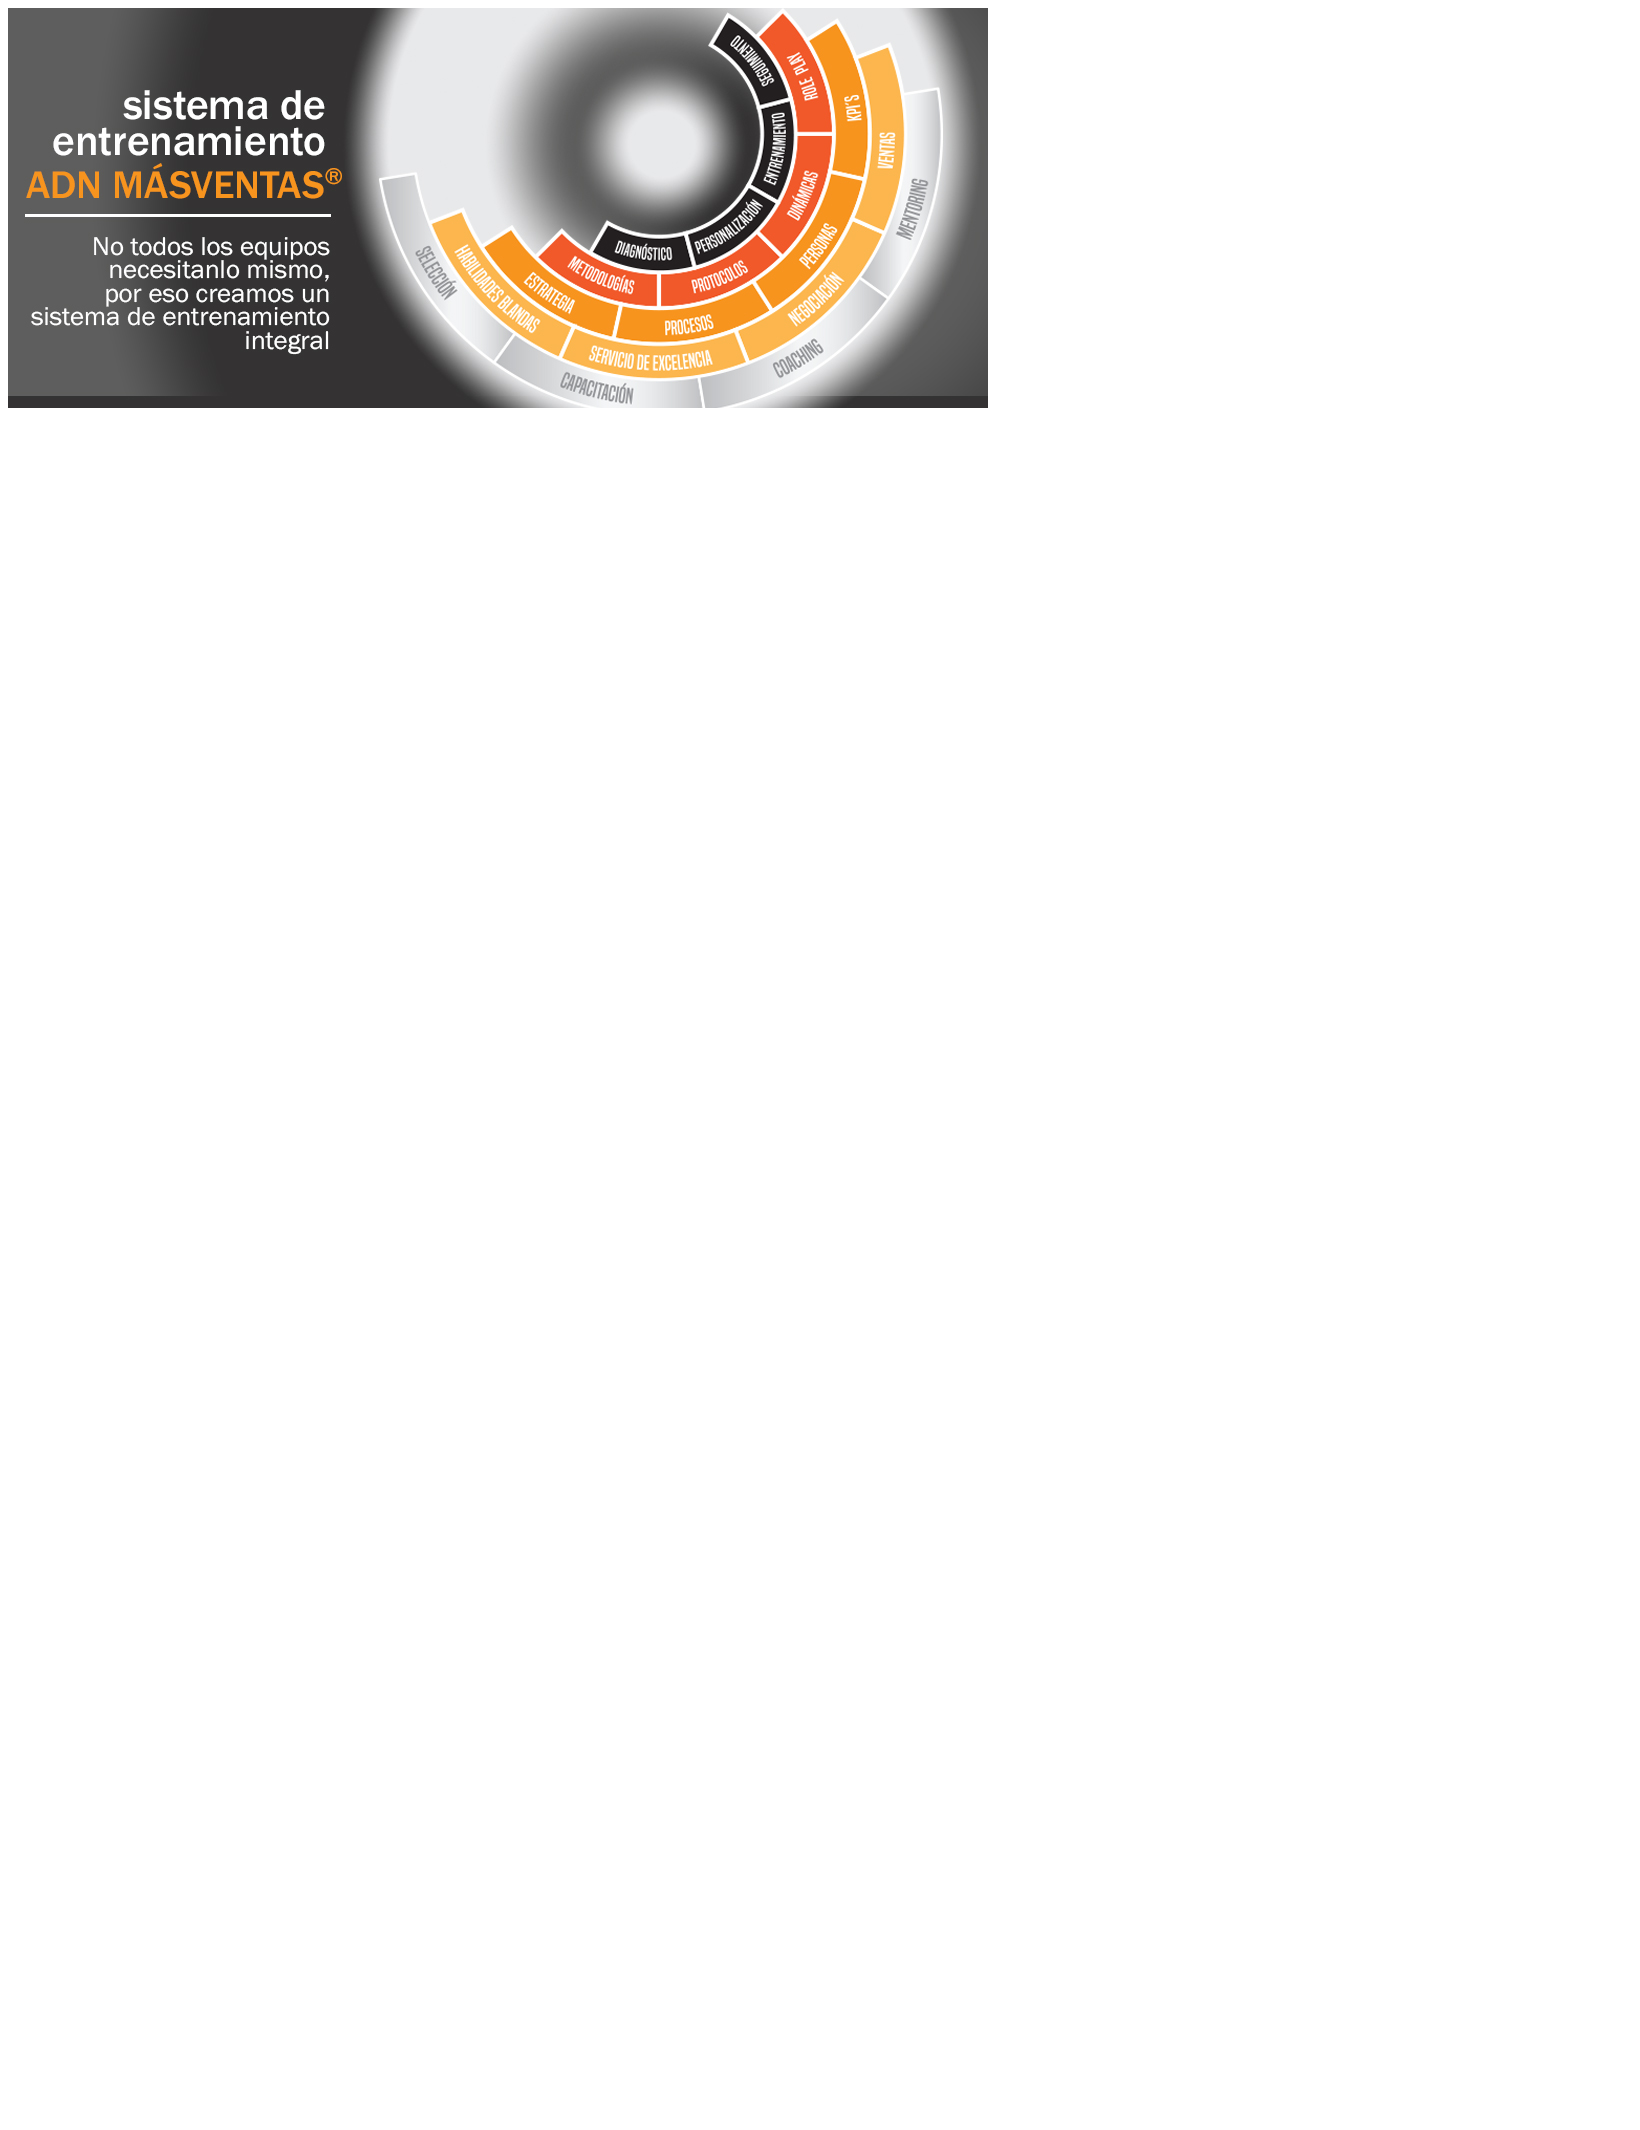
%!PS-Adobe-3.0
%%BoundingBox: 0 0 1640 2130
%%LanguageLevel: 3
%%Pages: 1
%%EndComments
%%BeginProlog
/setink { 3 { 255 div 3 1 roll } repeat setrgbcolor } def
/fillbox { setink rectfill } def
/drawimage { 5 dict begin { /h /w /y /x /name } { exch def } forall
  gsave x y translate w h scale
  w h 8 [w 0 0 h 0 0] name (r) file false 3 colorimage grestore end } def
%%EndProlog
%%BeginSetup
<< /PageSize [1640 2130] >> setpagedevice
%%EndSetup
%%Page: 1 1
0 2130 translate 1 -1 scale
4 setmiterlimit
0 0 1640 2130 255 255 255 fillbox
(assets/img1.rgb) 8 8 980 400 drawimage
showpage
%%EOF
